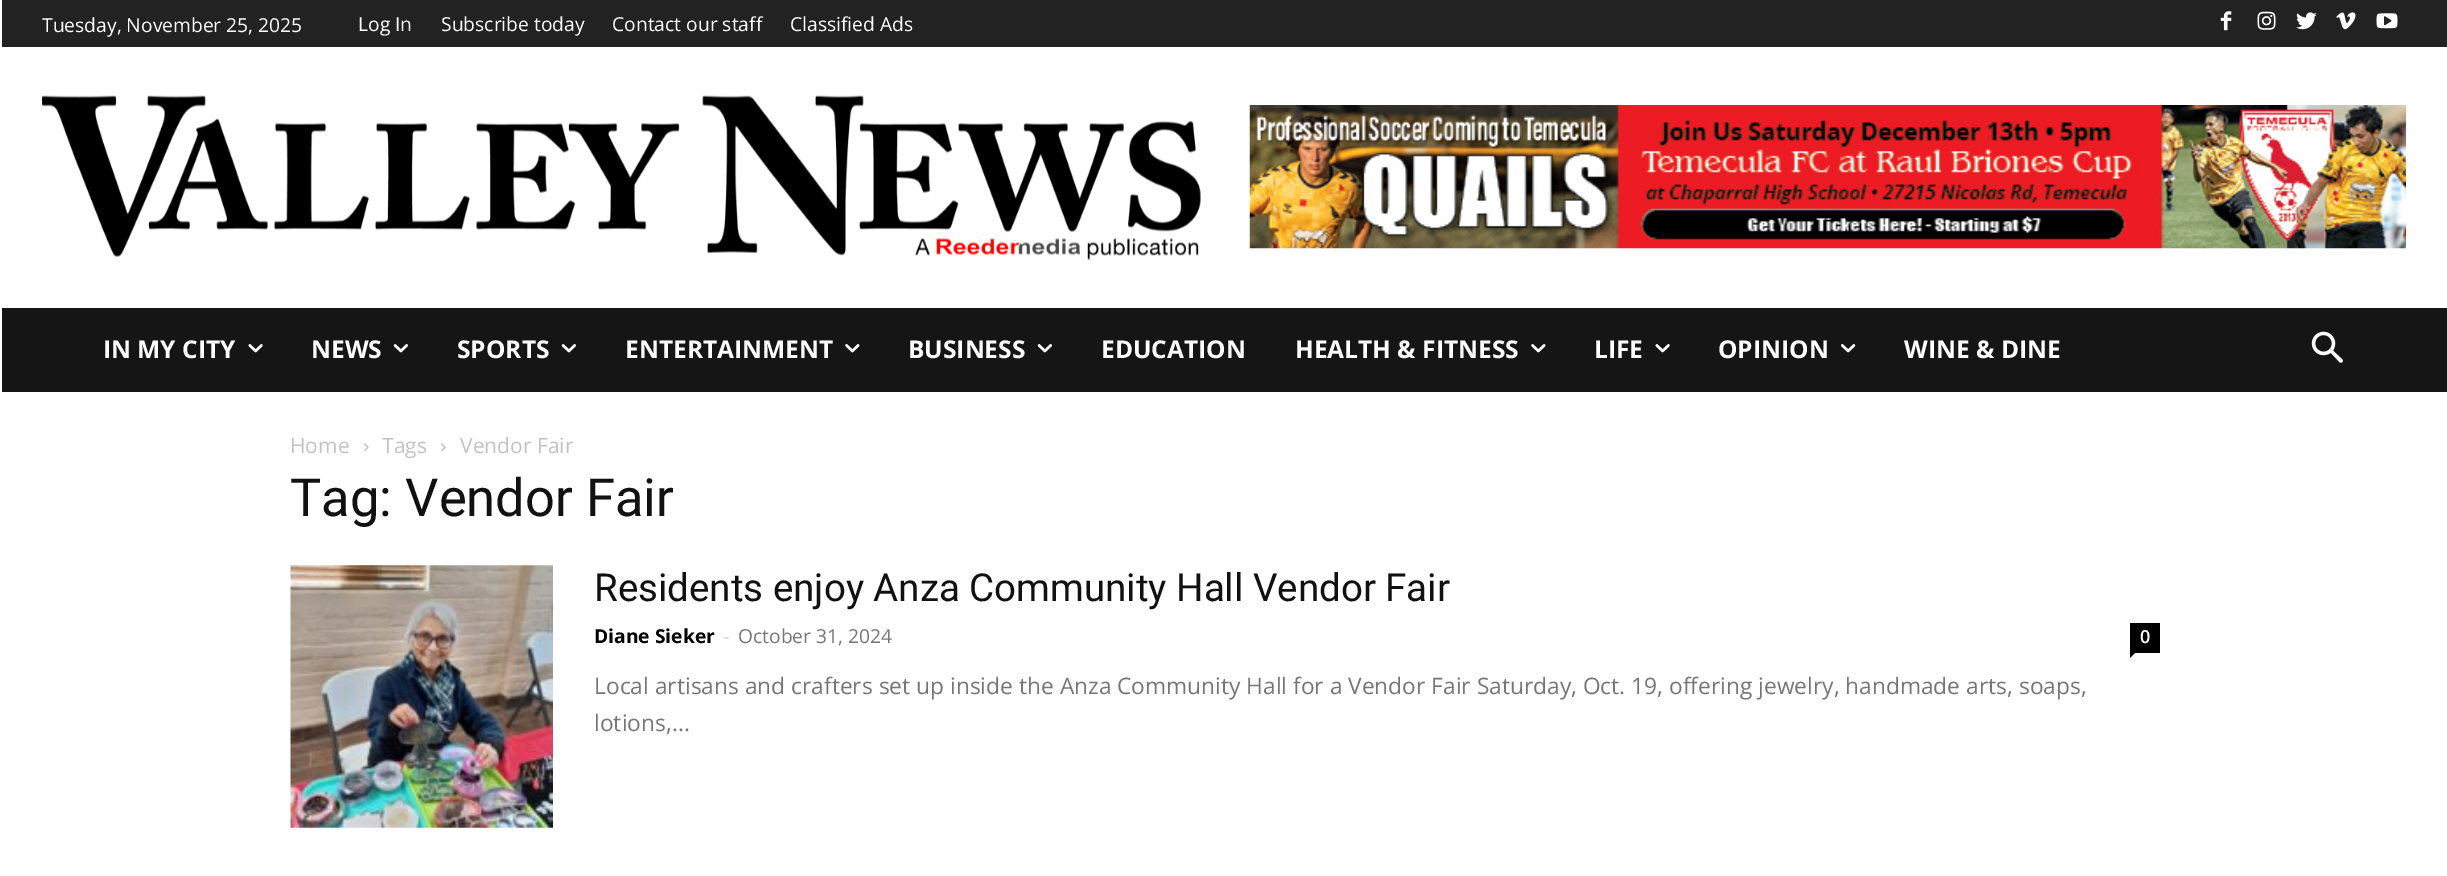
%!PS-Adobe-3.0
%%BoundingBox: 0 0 2447 876
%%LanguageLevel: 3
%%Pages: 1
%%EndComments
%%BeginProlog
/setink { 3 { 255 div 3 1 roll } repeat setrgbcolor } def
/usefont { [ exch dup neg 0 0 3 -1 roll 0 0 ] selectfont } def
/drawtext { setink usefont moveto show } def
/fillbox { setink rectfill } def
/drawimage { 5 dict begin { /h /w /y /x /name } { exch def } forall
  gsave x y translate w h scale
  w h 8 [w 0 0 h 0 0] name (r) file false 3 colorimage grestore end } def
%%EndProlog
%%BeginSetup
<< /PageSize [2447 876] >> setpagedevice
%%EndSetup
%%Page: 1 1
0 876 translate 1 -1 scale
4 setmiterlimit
0 0 2447 876 255 255 255 fillbox
2 0 2445 47 34 34 34 fillbox
(Tuesday, November 25, 2025) 42 32 /OpenSans-Regular 19.25 255 255 255 drawtext
(Log In) 358 31 /OpenSans-Regular 19.25 255 255 255 drawtext
(Subscribe today) 441 31 /OpenSans-Regular 19.25 255 255 255 drawtext
(Contact our staff) 612 31 /OpenSans-Regular 19.25 255 255 255 drawtext
(Classified Ads) 790 31 /OpenSans-Regular 19.25 255 255 255 drawtext
(assets/img1.rgb) 2220 11 12 20 drawimage
(assets/img2.rgb) 2257 11 19 19 drawimage
(assets/img3.rgb) 2296 12 21 18 drawimage
(assets/img4.rgb) 2336 12 20 18 drawimage
(assets/img5.rgb) 2376 13 22 16 drawimage
(assets/img6.rgb) 42 95 1159 165 drawimage
(assets/img7.rgb) 1249 105 1158 144 drawimage
2 308 2445 84 21 21 21 fillbox
(IN MY CITY) 103 358 /OpenSans-Bold 24.5 255 255 255 drawtext
(assets/img8.rgb) 248 344 15 9 drawimage
(NEWS) 311 358 /OpenSans-Bold 24.5 255 255 255 drawtext
(assets/img9.rgb) 393 344 15 9 drawimage
(SPORTS) 457 358 /OpenSans-Bold 24.5 255 255 255 drawtext
(assets/img9.rgb) 561 344 15 9 drawimage
(ENTERTAINMENT) 625 358 /OpenSans-Bold 24.5 255 255 255 drawtext
(assets/img10.rgb) 845 344 15 9 drawimage
(BUSINESS) 908 358 /OpenSans-Bold 24.5 255 255 255 drawtext
(assets/img9.rgb) 1037 344 15 9 drawimage
(EDUCATION) 1101 358 /OpenSans-Bold 24.5 255 255 255 drawtext
(HEALTH & FITNESS) 1295 358 /OpenSans-Bold 24.5 255 255 255 drawtext
(assets/img10.rgb) 1531 344 15 9 drawimage
(LIFE) 1594 358 /OpenSans-Bold 24.5 255 255 255 drawtext
(assets/img8.rgb) 1655 344 15 9 drawimage
(OPINION) 1718 358 /OpenSans-Bold 24.5 255 255 255 drawtext
(assets/img11.rgb) 1841 344 15 9 drawimage
(WINE & DINE) 1904 358 /OpenSans-Bold 24.5 255 255 255 drawtext
(assets/img12.rgb) 2311 331 32 32 drawimage
(Home) 290 453 /OpenSans-Regular 21 195 195 195 drawtext
(assets/img13.rgb) 364 443 5 9 drawimage
(Tags) 382 453 /OpenSans-Regular 21 195 195 195 drawtext
(assets/img13.rgb) 441 443 5 9 drawimage
(Vendor Fair) 460 453 /OpenSans-Regular 21 195 195 195 drawtext
(Tag: Vendor Fair) 290 516 /Roboto-Regular 52.5 17 17 17 drawtext
(assets/img14.rgb) 290 565 263 263 drawimage
(Residents enjoy Anza Community Hall Vendor Fair) 594 601 /Roboto-Regular 38.5 17 17 17 drawtext
(Diane Sieker) 594 643 /OpenSans-Bold 19.25 0 0 0 drawtext
(-) 723 643 /OpenSans-Regular 19.25 204 204 204 drawtext
(October 31, 2024) 738 643 /OpenSans-Regular 19.25 118 118 118 drawtext
2130 623 30 30 0 0 0 fillbox
(0) 2140 643 /OpenSans-SemiBold 18 255 255 255 drawtext
0 0 0 setink
2130 653 moveto 2135 653 lineto 2130 658 lineto closepath fill
(Local artisans and crafters set up inside the Anza Community Hall for a Vendor Fair Saturday, Oct. 19, offering jewelry, handmade arts, soaps,) 594 694 /OpenSans-Regular 22.75 118 118 118 drawtext
(lotions,...) 594 731 /OpenSans-Regular 22.75 118 118 118 drawtext
showpage
%%EOF
